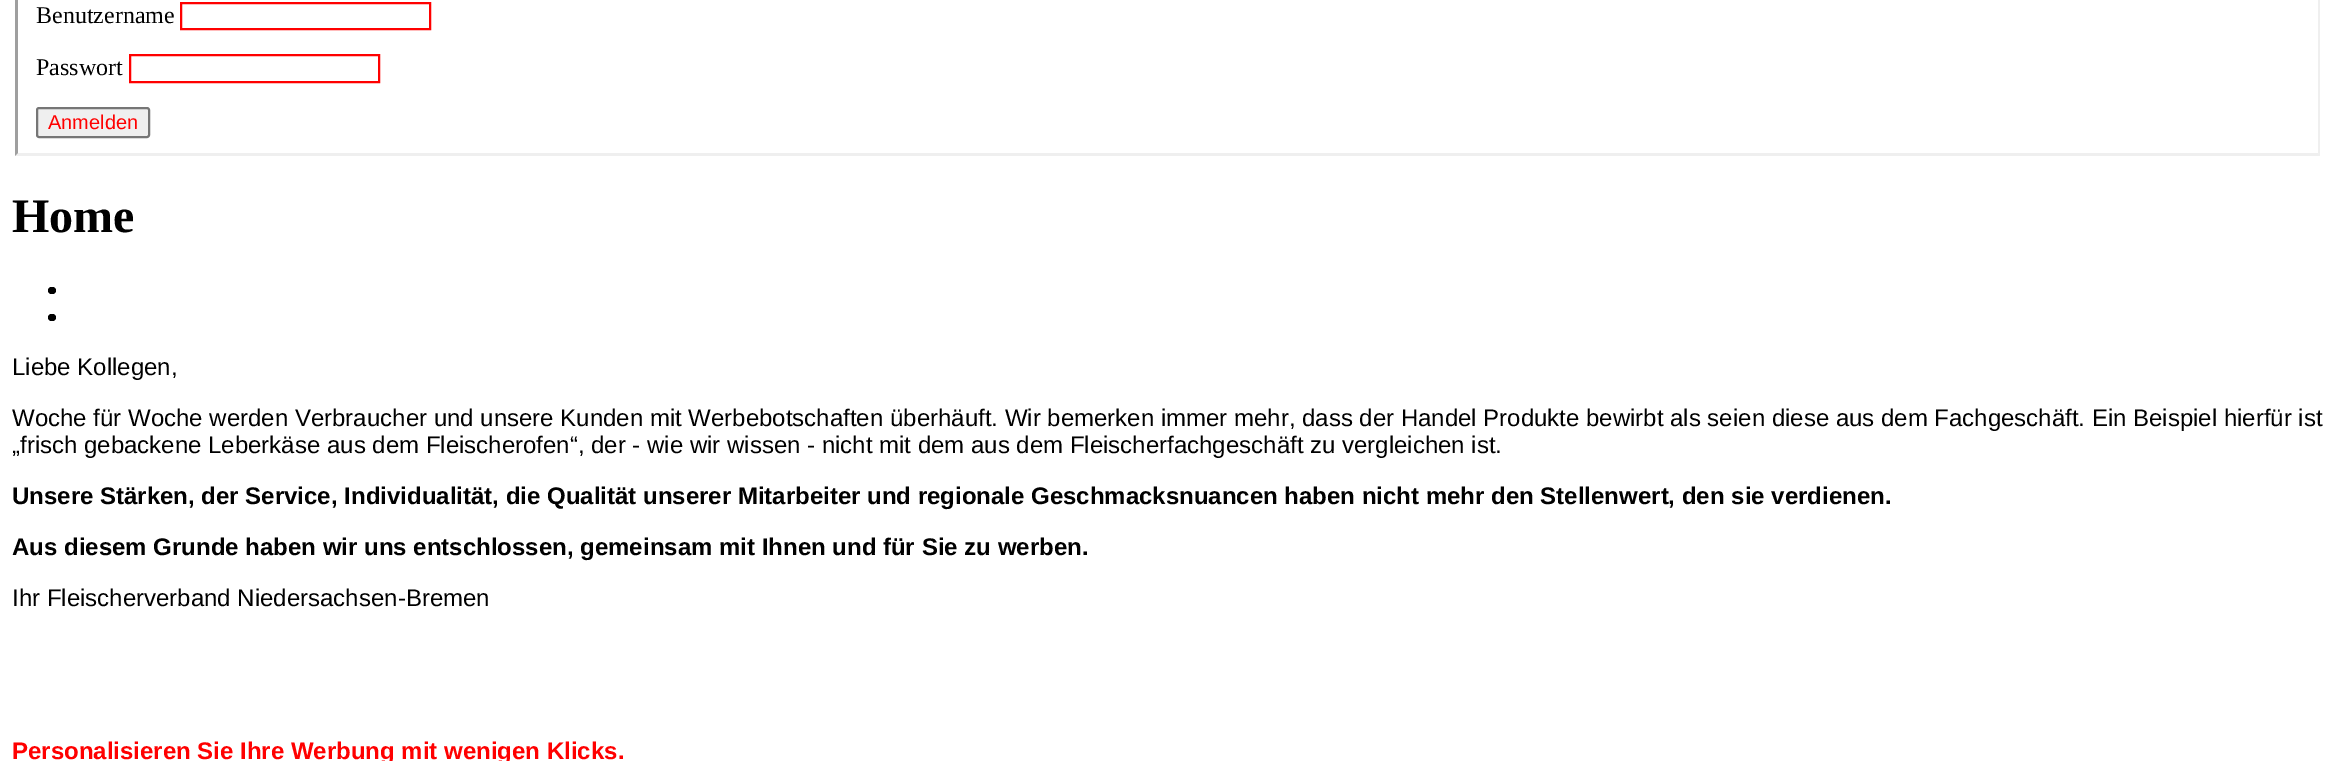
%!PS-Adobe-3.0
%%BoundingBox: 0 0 2335 761
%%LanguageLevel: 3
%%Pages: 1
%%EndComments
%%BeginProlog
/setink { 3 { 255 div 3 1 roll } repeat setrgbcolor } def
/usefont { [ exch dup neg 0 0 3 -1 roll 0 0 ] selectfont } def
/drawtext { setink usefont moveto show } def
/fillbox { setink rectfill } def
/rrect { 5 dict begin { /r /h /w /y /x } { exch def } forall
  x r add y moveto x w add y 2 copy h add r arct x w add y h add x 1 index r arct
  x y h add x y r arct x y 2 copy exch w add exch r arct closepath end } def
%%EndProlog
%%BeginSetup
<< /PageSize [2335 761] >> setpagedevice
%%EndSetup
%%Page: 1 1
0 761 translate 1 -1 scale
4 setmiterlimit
0 0 2335 761 255 255 255 fillbox
239 239 239 setink
2320 -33 moveto 2320 156 lineto 2318 153 lineto 2318 -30 lineto closepath fill
2320 156 moveto 15 156 lineto 18 153 lineto 2318 153 lineto closepath fill
159 159 159 setink
15 156 moveto 15 -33 lineto 18 -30 lineto 18 153 lineto closepath fill
(Benutzername) 36 23 /LiberationSerif-Regular 24 0 0 0 drawtext
255 0 0 setink
2 setlinewidth
181 3 249 26 rectstroke
(Passwort) 36 75 /LiberationSerif-Regular 24 0 0 0 drawtext
255 0 0 setink
130 55 249 27 rectstroke
239 239 239 setink
37 108 112 29 2 rrect gsave fill grestore
118 118 118 setink
stroke
(Anmelden) 48 129 /LiberationSans-Regular 20 255 0 0 drawtext
(Home) 12 232 /LiberationSerif-Bold 48 0 0 0 drawtext
48 287 8 7 3.5 rrect fill
48 314 8 7 3.5 rrect fill
(Liebe Kollegen,) 12 375 /LiberationSans-Regular 24 0 0 0 drawtext
(Woche für Woche werden Verbraucher und unsere Kunden mit Werbebotschaften überhäuft. Wir bemerken immer mehr, dass der Handel Produkte bewirbt als seien diese aus dem Fachgeschäft. Ein Beispiel hierfür ist) 12 426 /LiberationSans-Regular 24 0 0 0 drawtext
(„frisch gebackene Leberkäse aus dem Fleischerofen“, der - wie wir wissen - nicht mit dem aus dem Fleischerfachgeschäft zu vergleichen ist.) 12 453 /LiberationSans-Regular 24 0 0 0 drawtext
(Unsere Stärken, der Service, Individualität, die Qualität unserer Mitarbeiter und regionale Geschmacksnuancen haben nicht mehr den Stellenwert, den sie verdienen.) 12 504 /LiberationSans-Bold 24 0 0 0 drawtext
(Aus diesem Grunde haben wir uns entschlossen, gemeinsam mit Ihnen und für Sie zu werben.) 12 555 /LiberationSans-Bold 24 0 0 0 drawtext
(Ihr Fleischerverband Niedersachsen-Bremen) 12 606 /LiberationSans-Regular 24 0 0 0 drawtext
(Personalisieren Sie Ihre Werbung mit wenigen Klicks.) 12 759 /LiberationSans-Bold 24 255 0 0 drawtext
showpage
%%EOF
